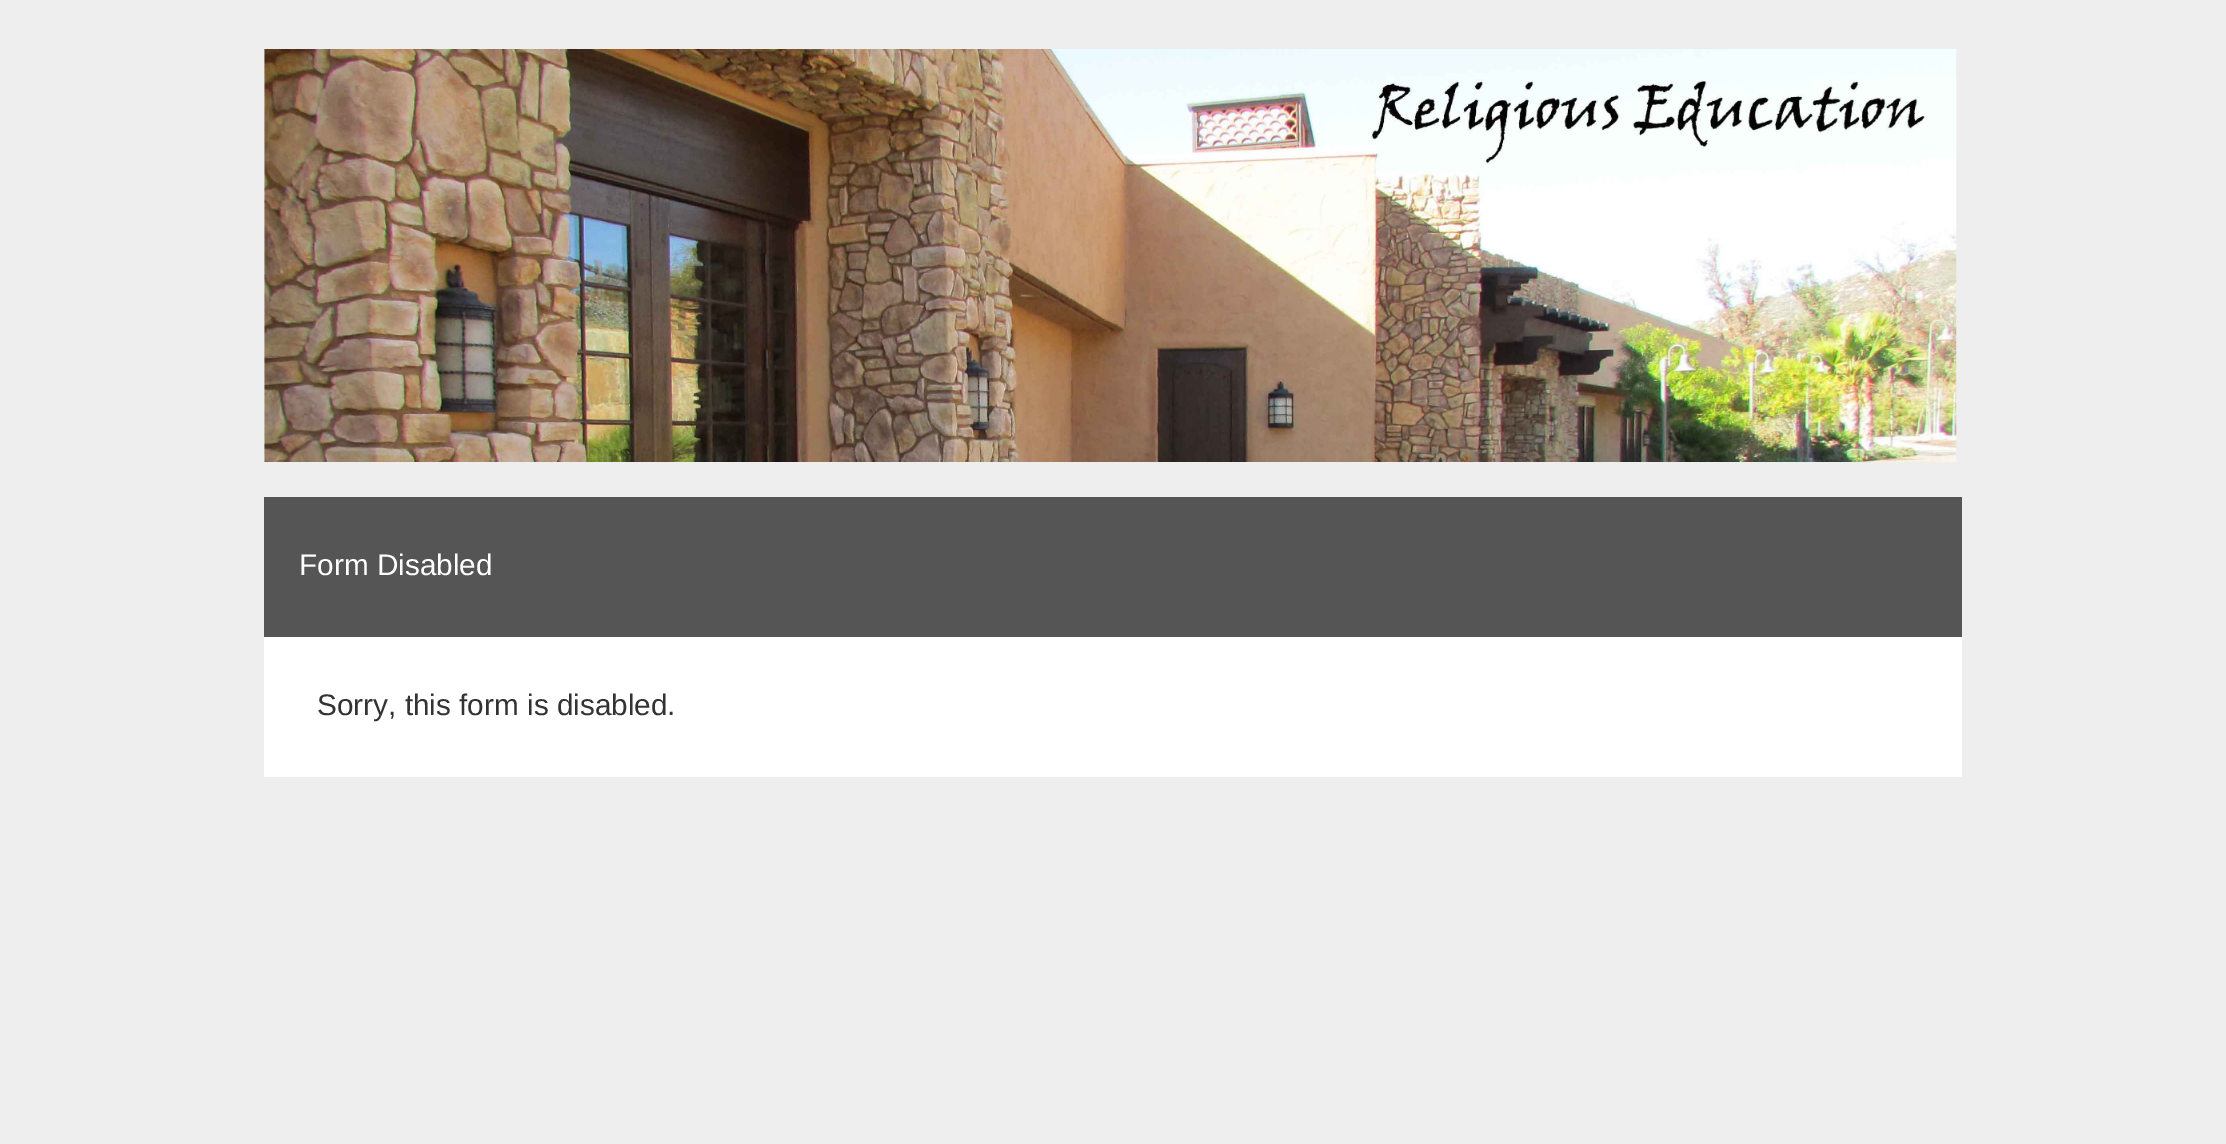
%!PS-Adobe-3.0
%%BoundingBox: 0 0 2226 1144
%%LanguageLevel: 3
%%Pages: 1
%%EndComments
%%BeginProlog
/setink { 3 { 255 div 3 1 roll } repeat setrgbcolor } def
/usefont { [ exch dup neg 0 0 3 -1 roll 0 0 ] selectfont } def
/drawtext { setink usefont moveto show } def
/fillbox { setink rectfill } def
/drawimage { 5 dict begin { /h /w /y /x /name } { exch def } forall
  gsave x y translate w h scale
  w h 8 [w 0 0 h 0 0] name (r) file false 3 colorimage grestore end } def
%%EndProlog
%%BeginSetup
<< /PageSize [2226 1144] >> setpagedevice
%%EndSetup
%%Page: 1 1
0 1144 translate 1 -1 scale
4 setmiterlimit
0 0 2226 1144 238 238 238 fillbox
(assets/img1.rgb) 264 49 1693 413 drawimage
264 637 1698 140 255 255 255 fillbox
264 497 1698 140 85 85 85 fillbox
(Form Disabled) 299 575 /LiberationSans-Regular 29.75 255 255 255 drawtext
(Sorry, this form is disabled.) 317 715 /LiberationSans-Regular 29.75 51 51 51 drawtext
showpage
%%EOF
